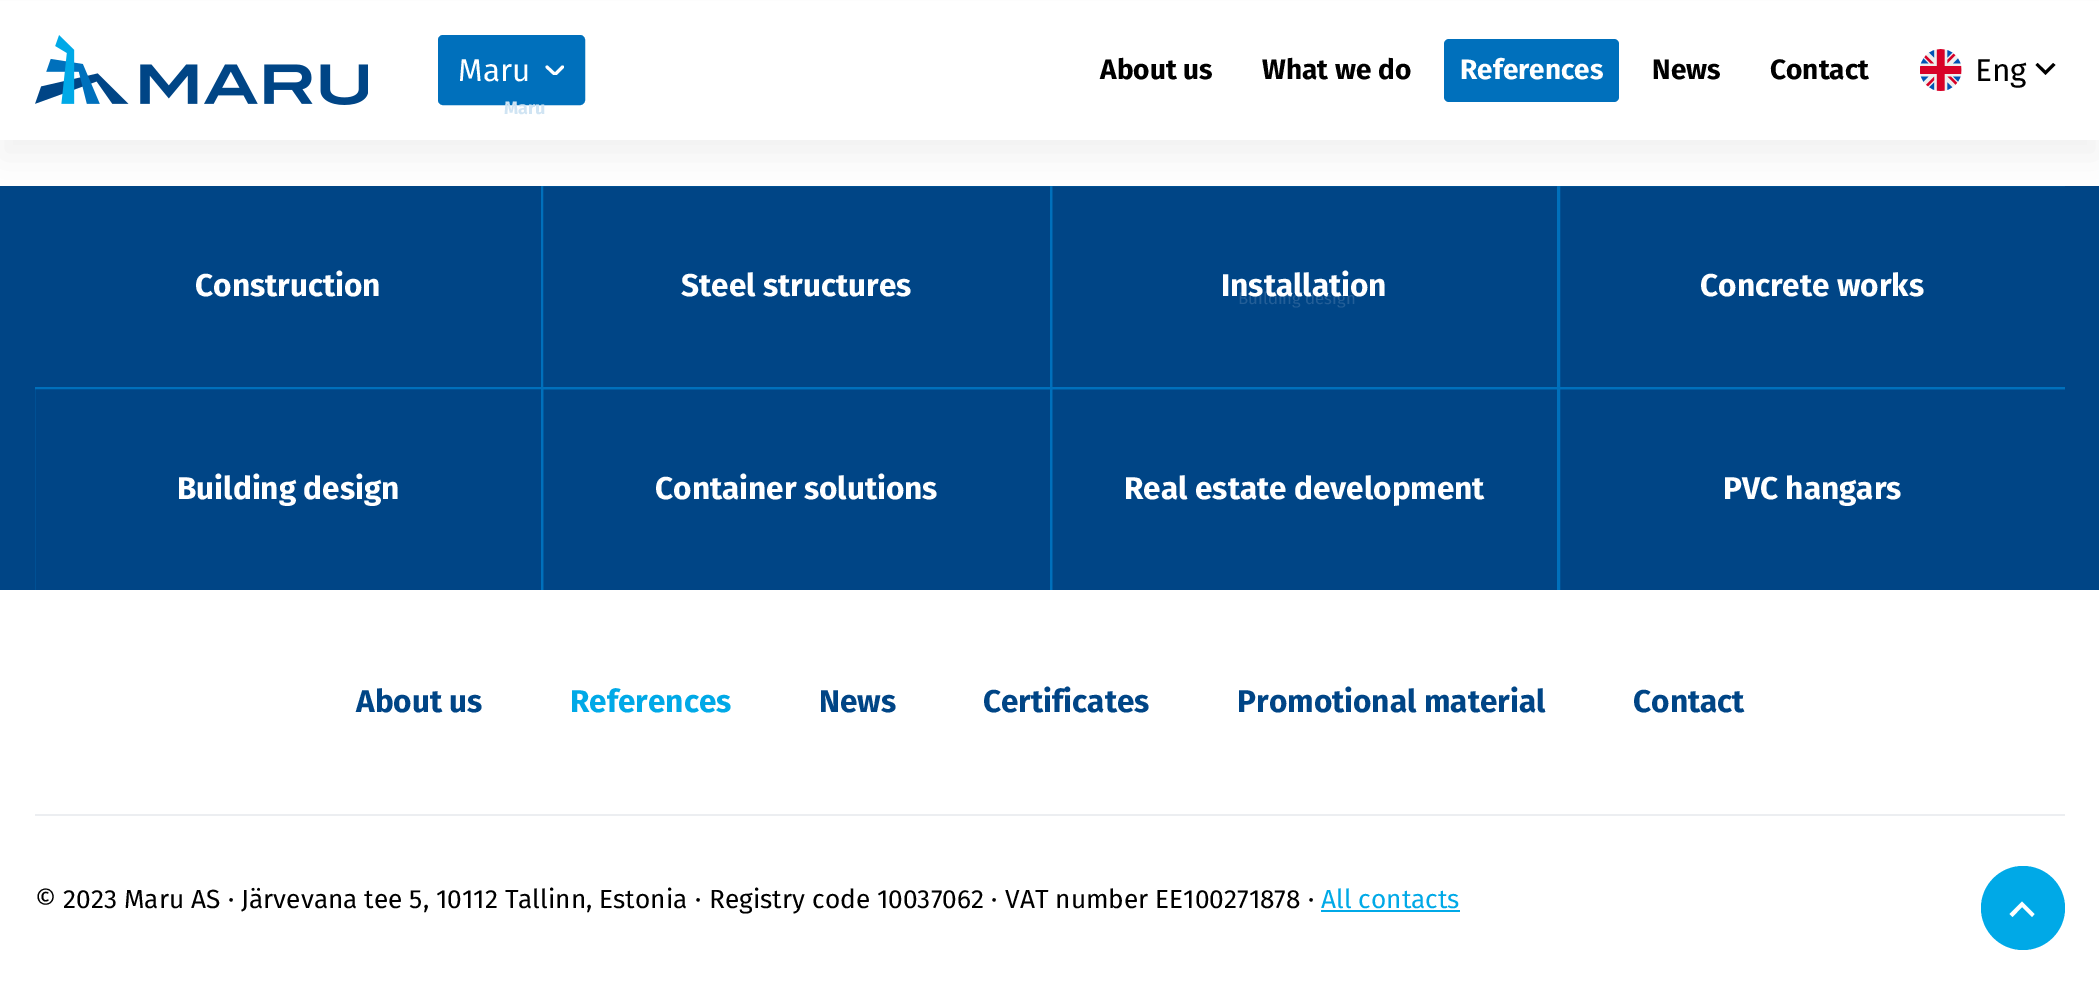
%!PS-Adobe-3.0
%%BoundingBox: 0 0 2099 984
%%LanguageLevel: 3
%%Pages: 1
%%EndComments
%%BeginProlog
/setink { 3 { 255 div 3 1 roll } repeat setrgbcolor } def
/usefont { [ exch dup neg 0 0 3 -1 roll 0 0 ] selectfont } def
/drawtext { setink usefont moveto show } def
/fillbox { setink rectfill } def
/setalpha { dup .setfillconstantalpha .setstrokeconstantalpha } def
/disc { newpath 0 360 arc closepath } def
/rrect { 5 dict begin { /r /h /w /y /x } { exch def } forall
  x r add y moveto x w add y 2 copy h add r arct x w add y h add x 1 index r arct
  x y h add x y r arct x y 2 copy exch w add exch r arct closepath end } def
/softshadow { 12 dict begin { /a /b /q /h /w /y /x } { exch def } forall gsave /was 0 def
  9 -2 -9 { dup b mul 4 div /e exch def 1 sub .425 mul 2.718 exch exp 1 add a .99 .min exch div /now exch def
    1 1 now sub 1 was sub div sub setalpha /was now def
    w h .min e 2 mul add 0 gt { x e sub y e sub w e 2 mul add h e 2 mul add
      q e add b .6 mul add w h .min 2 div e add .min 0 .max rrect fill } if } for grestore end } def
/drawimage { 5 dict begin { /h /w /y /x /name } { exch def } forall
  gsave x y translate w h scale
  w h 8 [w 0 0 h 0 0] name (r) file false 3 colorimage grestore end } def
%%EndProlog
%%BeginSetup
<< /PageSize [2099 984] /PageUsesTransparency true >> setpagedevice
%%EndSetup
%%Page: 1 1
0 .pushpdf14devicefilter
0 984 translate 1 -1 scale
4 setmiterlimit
0 0 2099 984 255 255 255 fillbox
0 186 2099 404 0 69 134 fillbox
gsave
35 186 2030 404 rectclip
0 112 188 setink
2 setlinewidth
542 185 509 203 rectstroke
1051 185 507 203 rectstroke
1559 185 507 203 rectstroke
grestore
0 0 0 setink
0 18 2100 140 0 17.5 0.06 softshadow
0 1 2099 139 255 255 255 fillbox
(assets/img1.rgb) 35 35 333 70 drawimage
0 112 188 setink
439 36 145 68 4 rrect gsave fill grestore
2 setlinewidth
stroke
(Maru) 458 81 /FiraSans-Regular 31.5 255 255 255 drawtext
gsave
544 65 21 10 rectclip
3 setlinewidth
1 setlinecap
1 setlinejoin
547 67 moveto 555 74.5 lineto 562.5 67 lineto stroke
grestore
(Maru) 504 114 /FiraSans-Bold 18 208 228 243 drawtext
(About us) 1100 79 /FiraSans-Bold 28 0 0 0 drawtext
(What we do) 1262 79 /FiraSans-Bold 28 0 0 0 drawtext
(Building design) 1238 304 /FiraSans-Regular 16.75 35 94 151 drawtext
0 112 188 setink
1444 39 175 63 5 rrect fill
(References) 1460 79 /FiraSans-Bold 28 255 255 255 drawtext
(News) 1652 79 /FiraSans-Bold 28 0 0 0 drawtext
(Contact) 1770 79 /FiraSans-Bold 28 0 0 0 drawtext
(assets/img2.rgb) 1920 49 42 42 drawimage
(Eng) 1975 81 /FiraSans-Regular 31.5 0 0 0 drawtext
2045.5 70.5 moveto 2053 63 lineto 2055.5 65 lineto 2045.5 75 lineto 2035.5 65 lineto 2037.5 63 lineto closepath fill
(Construction) 195 296 /FiraSans-Bold 31.5 255 255 255 drawtext
(Steel structures) 681 296 /FiraSans-Bold 31.5 255 255 255 drawtext
(Installation) 1221 296 /FiraSans-Bold 31.5 255 255 255 drawtext
(Concrete works) 1700 296 /FiraSans-Bold 31.5 255 255 255 drawtext
gsave
35 186 2030 404 rectclip
0 112 188 setink
34 388 508 203 rectstroke
grestore
(Building design) 177 499 /FiraSans-Bold 31.5 255 255 255 drawtext
gsave
35 186 2030 404 rectclip
0 112 188 setink
542 388 509 203 rectstroke
grestore
(Container solutions) 655 499 /FiraSans-Bold 31.5 255 255 255 drawtext
gsave
35 186 2030 404 rectclip
0 112 188 setink
1051 388 507 203 rectstroke
grestore
(Real estate development) 1124 499 /FiraSans-Bold 31.5 255 255 255 drawtext
gsave
35 186 2030 404 rectclip
0 112 188 setink
1559 388 507 203 rectstroke
grestore
(PVC hangars) 1723 499 /FiraSans-Bold 31.5 255 255 255 drawtext
(About us) 356 712 /FiraSans-Bold 31.5 0 69 134 drawtext
(References) 570 712 /FiraSans-Bold 31.5 0 169 231 drawtext
(News) 819 712 /FiraSans-Bold 31.5 0 69 134 drawtext
(Certificates) 983 712 /FiraSans-Bold 31.5 0 69 134 drawtext
(Promotional material) 1237 712 /FiraSans-Bold 31.5 0 69 134 drawtext
(Contact) 1633 712 /FiraSans-Bold 31.5 0 69 134 drawtext
35 814 2030 2 236 238 241 fillbox
(© 2023 Maru AS) 35 908 /FiraSans-Regular 26.25 0 0 0 drawtext
(·) 228 908 /FiraSans-Regular 26.25 0 0 0 drawtext
(Järvevana tee 5, 10112 Tallinn, Estonia) 241 908 /FiraSans-Regular 26.25 0 0 0 drawtext
(·) 695 908 /FiraSans-Regular 26.25 0 0 0 drawtext
(Registry code 10037062) 709 908 /FiraSans-Regular 26.25 0 0 0 drawtext
(·) 991 908 /FiraSans-Regular 26.25 0 0 0 drawtext
(VAT number EE100271878) 1005 908 /FiraSans-Regular 26.25 0 0 0 drawtext
(·) 1308 908 /FiraSans-Regular 26.25 0 0 0 drawtext
(All contacts) 1321 908 /FiraSans-Regular 26.25 0 169 231 drawtext
1321 910 139 2 0 169 231 fillbox
2023 908 42 disc fill
255 255 255 setink
2022 907 moveto 2012.5 917 lineto 2009.5 914 lineto 2022 901.5 lineto 2034.5 914 lineto 2032 917 lineto closepath fill
.poppdf14devicefilter showpage
%%EOF
